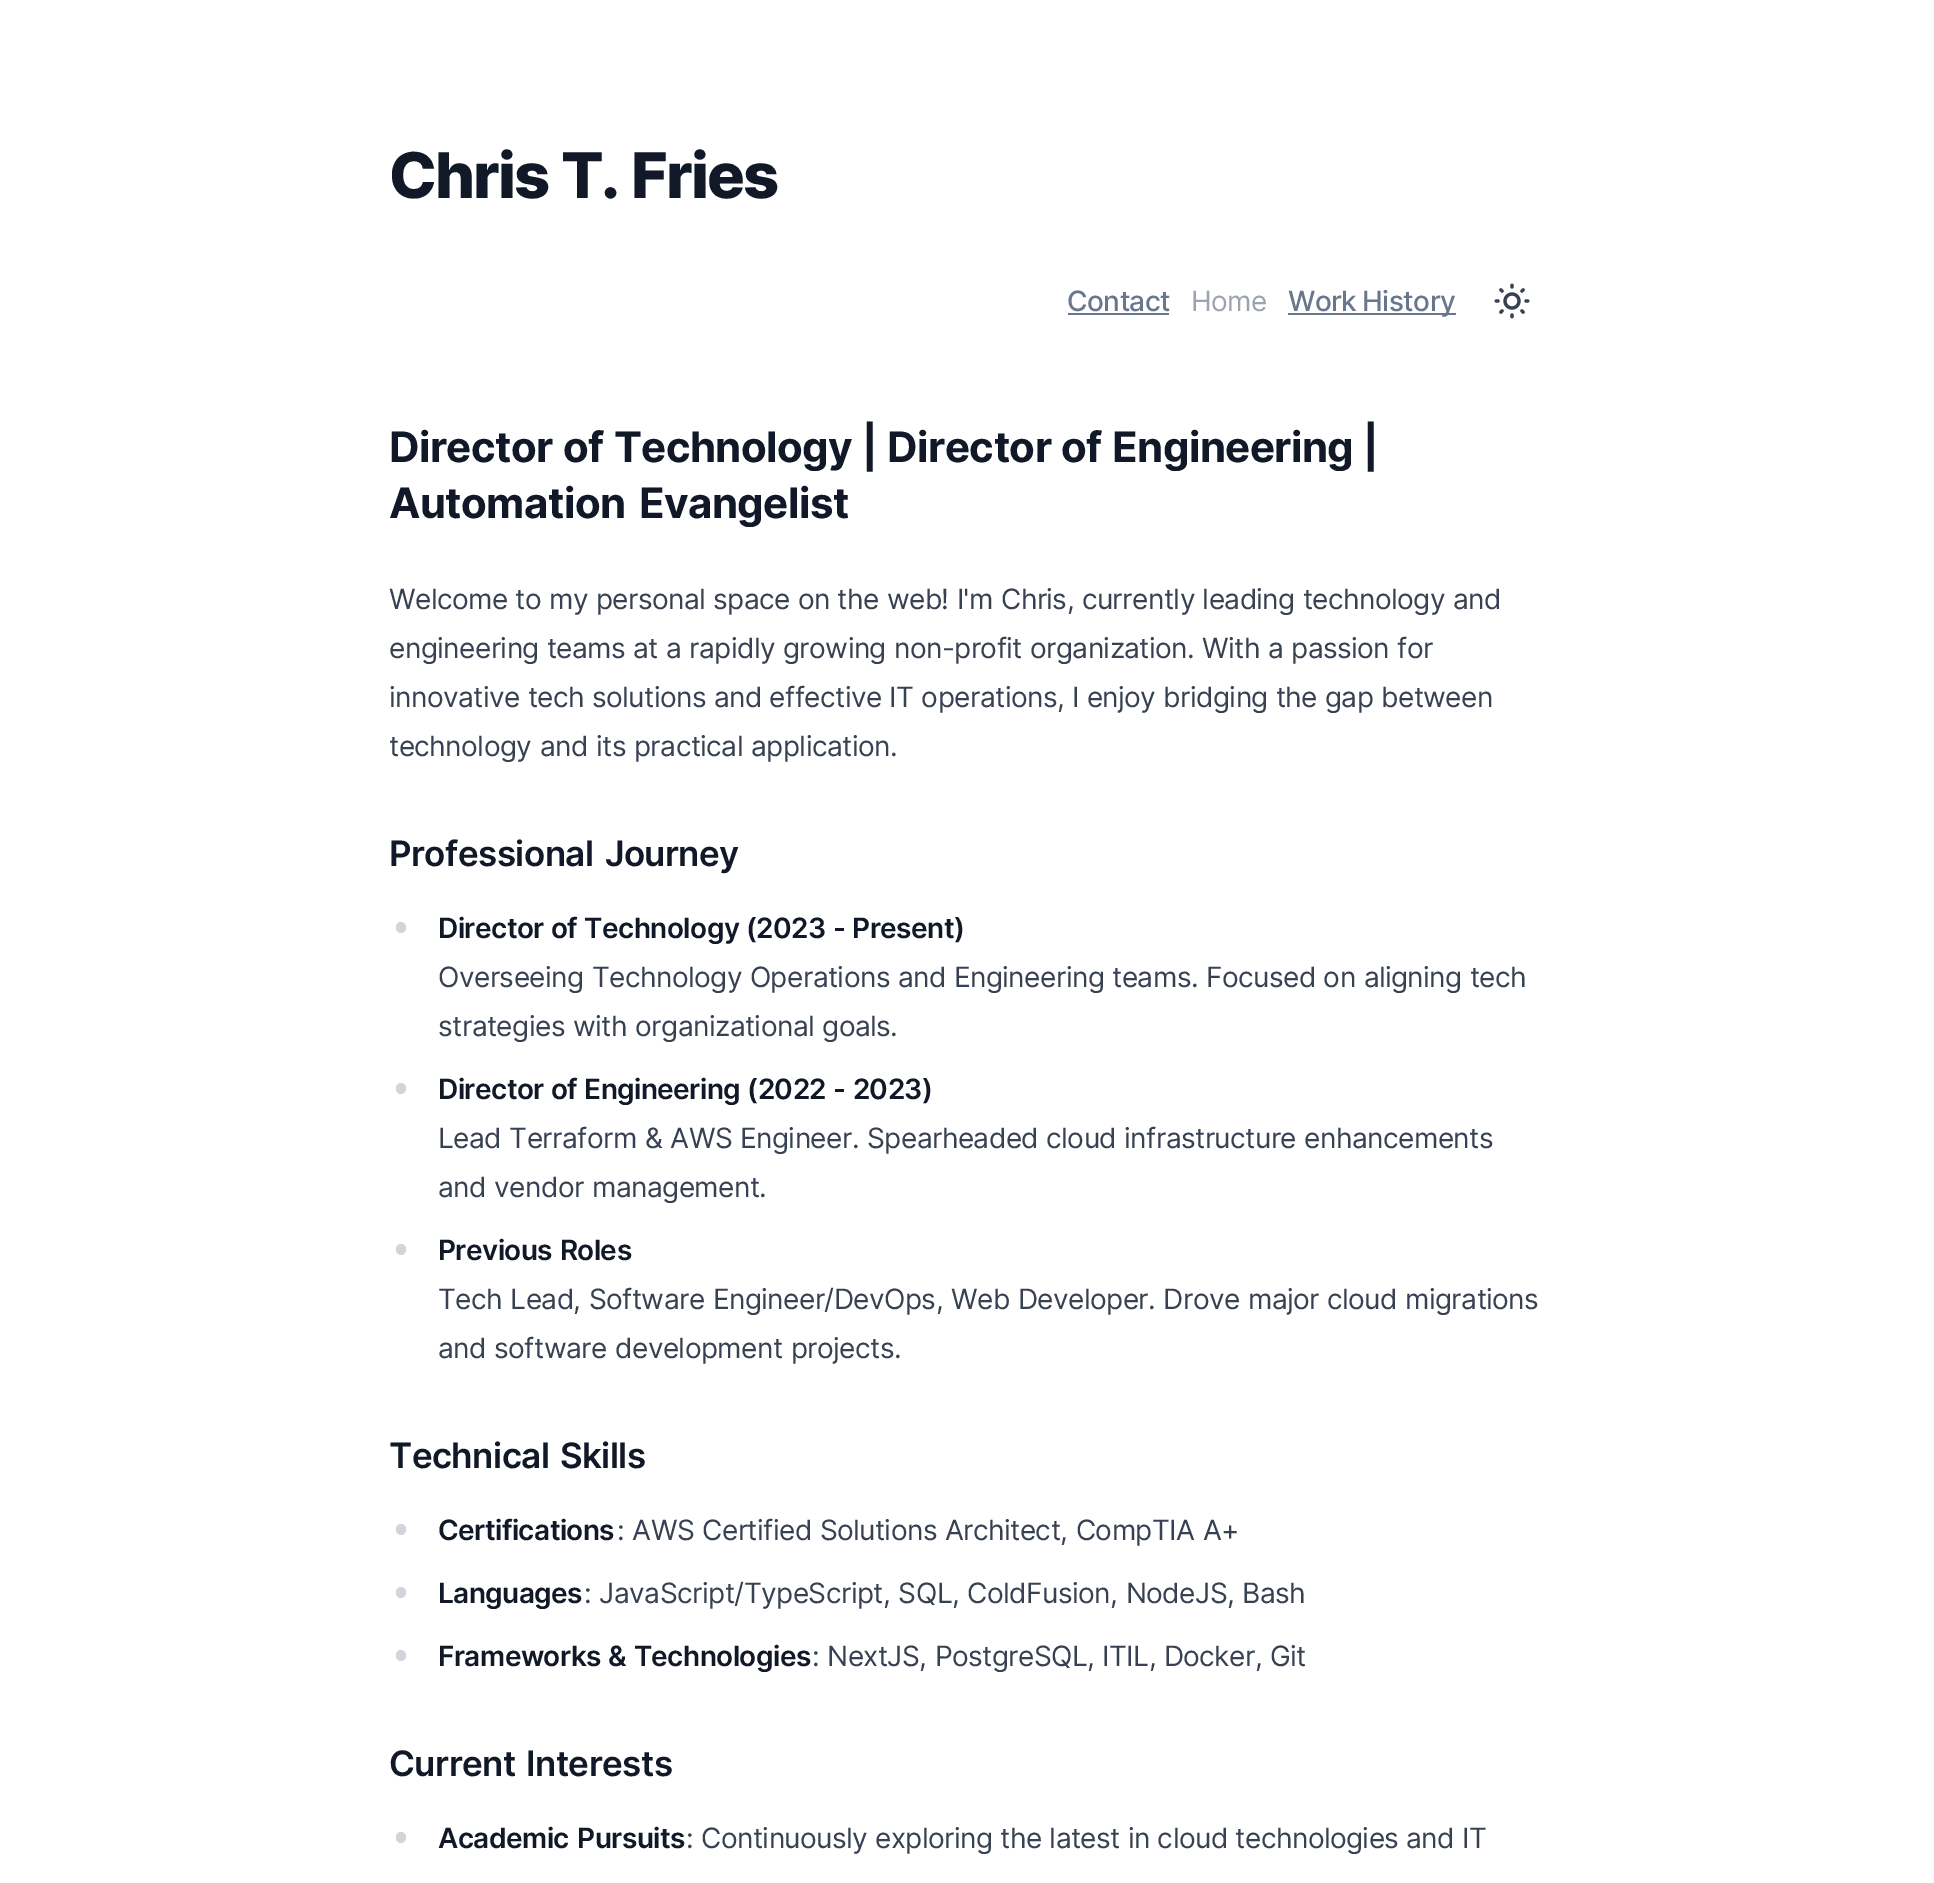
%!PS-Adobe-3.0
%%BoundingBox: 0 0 1934 1883
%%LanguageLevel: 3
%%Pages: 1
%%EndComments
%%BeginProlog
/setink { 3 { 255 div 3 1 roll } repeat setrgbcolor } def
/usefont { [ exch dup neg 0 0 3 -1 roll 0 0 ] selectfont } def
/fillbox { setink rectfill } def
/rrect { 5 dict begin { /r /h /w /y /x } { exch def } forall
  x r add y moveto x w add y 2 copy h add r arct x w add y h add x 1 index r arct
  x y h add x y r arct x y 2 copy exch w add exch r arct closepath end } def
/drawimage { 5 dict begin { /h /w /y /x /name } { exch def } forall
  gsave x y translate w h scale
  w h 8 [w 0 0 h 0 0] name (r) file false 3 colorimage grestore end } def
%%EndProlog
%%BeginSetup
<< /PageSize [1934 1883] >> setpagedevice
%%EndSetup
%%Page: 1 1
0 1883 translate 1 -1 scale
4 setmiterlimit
0 0 1934 1883 255 255 255 fillbox
/Inter-ExtraBold 63 usefont
17 24 39 setink
389 198 moveto 1 0 32 -1.9 0 (Chris T. Fries) awidthshow
/Inter-Medium 28 usefont
105 119 140 setink
1067 311 moveto -0.55 0 (Contact) ashow
1068 313 101 2 105 119 140 fillbox
/Inter-Regular 28 usefont
156 163 175 setink
1191 311 moveto -0.55 0 (Home) ashow
1288 313 168 2 105 119 140 fillbox
/Inter-Medium 28 usefont
1288 311 moveto -1 0 32 -0.55 0 (Work History) awidthshow
(assets/img1.rgb) 1494 283 36 36 drawimage
/Inter-Bold 42 usefont
17 24 39 setink
389 462 moveto 0.75 0 32 -0.55 0 (Director of Technology | Director of Engineering |) awidthshow
389 518 moveto 4 0 32 -0.55 0 (Automation Evangelist) awidthshow
/Inter-Regular 28 usefont
55 65 81 setink
389 609 moveto 0.5 0 32 -0.55 0 (Welcome to my personal space on the web! I'm Chris, currently leading technology and) awidthshow
389 658 moveto 0.6 0 32 -0.55 0 (engineering teams at a rapidly growing non-profit organization. With a passion for) awidthshow
389 707 moveto 0.5 0 32 -0.55 0 (innovative tech solutions and effective IT operations, I enjoy bridging the gap between) awidthshow
389 756 moveto 1 0 32 -0.55 0 (technology and its practical application.) awidthshow
/Inter-SemiBold 35 usefont
17 24 39 setink
389 866 moveto 3 0 32 -0.55 0 (Professional Journey) awidthshow
209 213 219 setink
396 922 10 11 5 rrect fill
/Inter-SemiBold 28 usefont
17 24 39 setink
438 938 moveto 0.5 0 32 -0.55 0 (Director of Technology \(2023 - Present\)) awidthshow
/Inter-Regular 28 usefont
55 65 81 setink
438 987 moveto 0.75 0 32 -0.55 0 (Overseeing Technology Operations and Engineering teams. Focused on aligning tech) awidthshow
438 1036 moveto 1 0 32 -0.55 0 (strategies with organizational goals.) awidthshow
209 213 219 setink
396 1083 10 11 5 rrect fill
/Inter-SemiBold 28 usefont
17 24 39 setink
438 1099 moveto 0.5 0 32 -0.55 0 (Director of Engineering \(2022 - 2023\)) awidthshow
/Inter-Regular 28 usefont
55 65 81 setink
438 1148 moveto 0.75 0 32 -0.55 0 (Lead Terraform & AWS Engineer. Spearheaded cloud infrastructure enhancements) awidthshow
438 1197 moveto 1 0 32 -0.55 0 (and vendor management.) awidthshow
209 213 219 setink
396 1244 10 11 5 rrect fill
/Inter-SemiBold 28 usefont
17 24 39 setink
438 1260 moveto 1 0 32 -0.55 0 (Previous Roles) awidthshow
/Inter-Regular 28 usefont
55 65 81 setink
438 1309 moveto 0.75 0 32 -0.55 0 (Tech Lead, Software Engineer/DevOps, Web Developer. Drove major cloud migrations) awidthshow
438 1358 moveto 1 0 32 -0.55 0 (and software development projects.) awidthshow
/Inter-SemiBold 35 usefont
17 24 39 setink
389 1468 moveto 2 0 32 -0.55 0 (Technical Skills) awidthshow
209 213 219 setink
396 1524 10 11 5 rrect fill
/Inter-SemiBold 28 usefont
17 24 39 setink
438 1540 moveto -0.55 0 (Certifications) ashow
/Inter-Regular 28 usefont
55 65 81 setink
617 1540 moveto 0.75 0 32 -0.55 0 (: AWS Certified Solutions Architect, CompTIA A+) awidthshow
209 213 219 setink
396 1587 10 11 5 rrect fill
/Inter-SemiBold 28 usefont
17 24 39 setink
438 1603 moveto -0.55 0 (Languages) ashow
/Inter-Regular 28 usefont
55 65 81 setink
584 1603 moveto 1 0 32 -0.55 0 (: JavaScript/TypeScript, SQL, ColdFusion, NodeJS, Bash) awidthshow
209 213 219 setink
396 1650 10 11 5 rrect fill
/Inter-SemiBold 28 usefont
17 24 39 setink
438 1666 moveto 1 0 32 -0.55 0 (Frameworks & Technologies) awidthshow
/Inter-Regular 28 usefont
55 65 81 setink
812 1666 moveto 0.5 0 32 -0.55 0 (: NextJS, PostgreSQL, ITIL, Docker, Git) awidthshow
/Inter-SemiBold 35 usefont
17 24 39 setink
389 1776 moveto 2 0 32 -0.55 0 (Current Interests) awidthshow
209 213 219 setink
396 1832 10 11 5 rrect fill
/Inter-SemiBold 28 usefont
17 24 39 setink
438 1848 moveto 2 0 32 -0.55 0 (Academic Pursuits) awidthshow
/Inter-Regular 28 usefont
55 65 81 setink
686 1848 moveto 0.5 0 32 -0.55 0 (: Continuously exploring the latest in cloud technologies and IT) awidthshow
showpage
%%EOF
